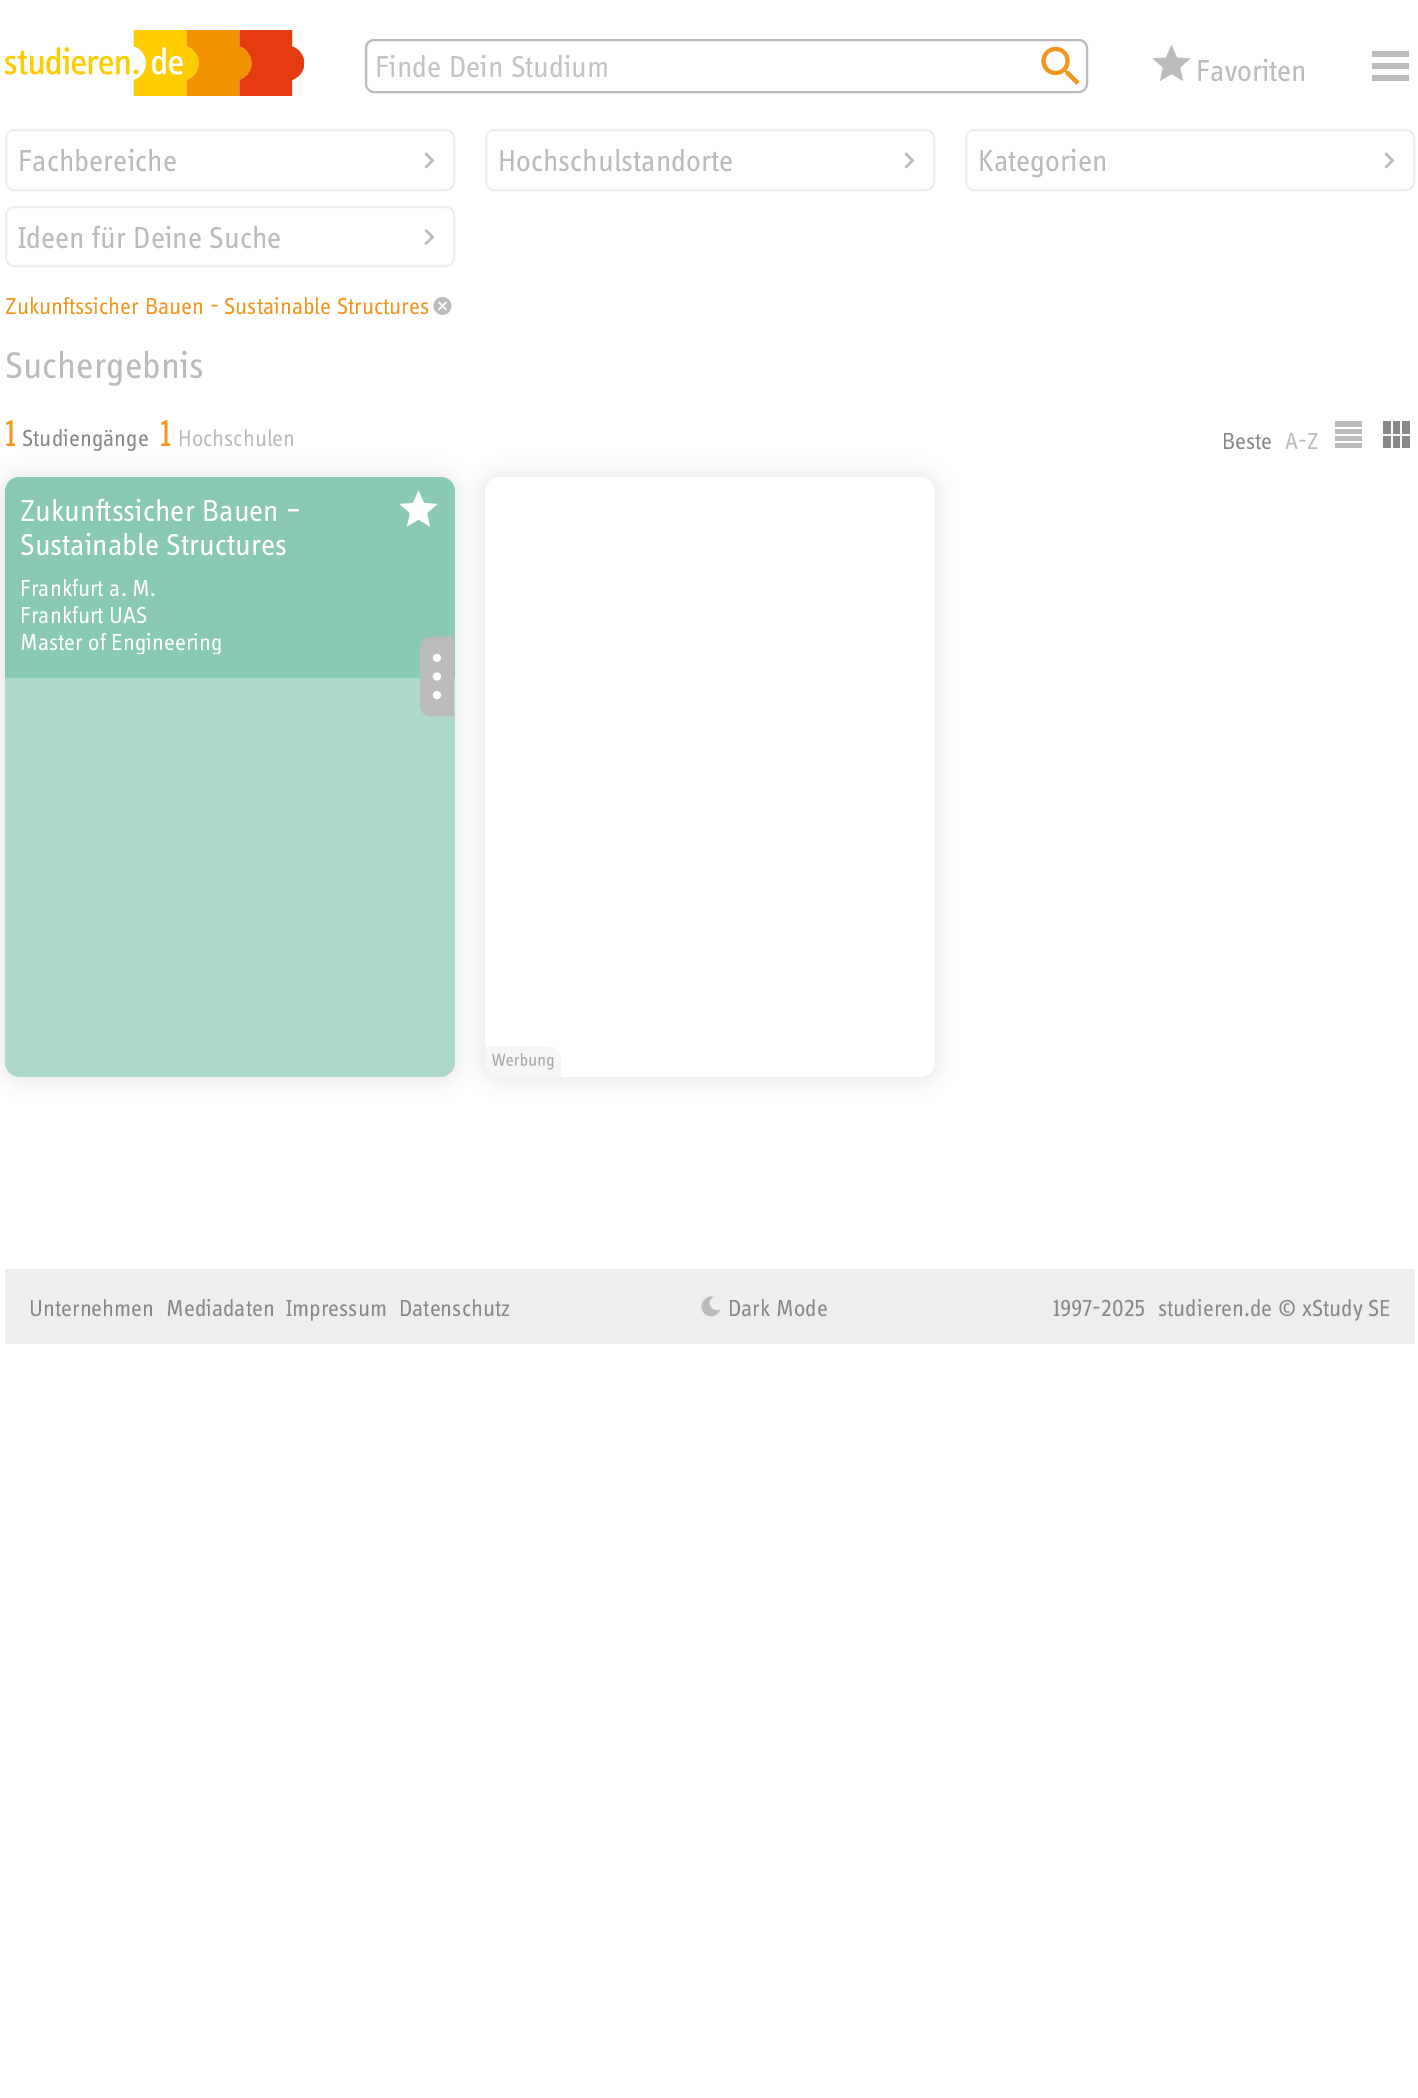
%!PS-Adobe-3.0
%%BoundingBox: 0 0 1418 2098
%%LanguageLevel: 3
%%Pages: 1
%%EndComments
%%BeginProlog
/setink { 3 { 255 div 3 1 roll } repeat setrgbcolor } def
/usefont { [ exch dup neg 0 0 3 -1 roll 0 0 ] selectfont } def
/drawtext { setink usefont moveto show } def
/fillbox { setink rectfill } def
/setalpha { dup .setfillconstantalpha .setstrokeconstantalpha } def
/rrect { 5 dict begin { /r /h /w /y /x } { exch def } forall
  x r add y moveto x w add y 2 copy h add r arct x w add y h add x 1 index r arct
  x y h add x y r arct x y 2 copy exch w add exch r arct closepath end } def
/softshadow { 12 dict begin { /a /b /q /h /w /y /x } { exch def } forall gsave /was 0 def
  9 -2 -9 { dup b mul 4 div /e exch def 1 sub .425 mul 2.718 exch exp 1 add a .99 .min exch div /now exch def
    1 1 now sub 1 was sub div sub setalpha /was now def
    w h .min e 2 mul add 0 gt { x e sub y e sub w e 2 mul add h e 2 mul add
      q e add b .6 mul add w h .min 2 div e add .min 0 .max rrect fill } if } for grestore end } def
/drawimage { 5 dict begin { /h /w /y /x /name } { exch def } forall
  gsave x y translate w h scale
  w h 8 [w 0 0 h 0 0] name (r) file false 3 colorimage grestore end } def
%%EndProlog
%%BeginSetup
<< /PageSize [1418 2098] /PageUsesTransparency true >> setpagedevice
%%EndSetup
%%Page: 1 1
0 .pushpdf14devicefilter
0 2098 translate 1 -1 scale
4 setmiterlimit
0 0 1418 2098 255 255 255 fillbox
(assets/img1.rgb) 5 30 300 66 drawimage
187 187 187 setink
2 setlinewidth
366 40 721 52 8 rrect stroke
(Finde Dein Studium) 375 77 /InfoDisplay-Regular 31.25 196 196 196 drawtext
(assets/img2.rgb) 1041 46 39 39 drawimage
187 187 187 setink
1171.5 74 moveto 1183 81 lineto 1180 67.5 lineto 1190.5 58.5 lineto 1177 57.5 lineto 1171.5 45 lineto 1166 57.5 lineto 1152.5 58.5 lineto 1163 67.5 lineto 1160 81 lineto closepath fill
(Favoriten) 1196 81 /InfoDisplay-Regular 31.25 187 187 187 drawtext
1372 51 37 6 187 187 187 fillbox
1372 75 37 6 187 187 187 fillbox
1372 63 37 6 187 187 187 fillbox
238 238 238 setink
6 130 448 60 8 rrect stroke
(assets/img3.rgb) 424 152 11 17 drawimage
(Fachbereiche) 18 171 /InfoDisplay-Regular 31.25 187 187 187 drawtext
238 238 238 setink
486 130 448 60 8 rrect stroke
(assets/img3.rgb) 904 152 11 17 drawimage
(Hochschulstandorte) 498 171 /InfoDisplay-Regular 31.25 187 187 187 drawtext
238 238 238 setink
966 130 448 60 8 rrect stroke
(assets/img3.rgb) 1384 152 11 17 drawimage
(Kategorien) 978 171 /InfoDisplay-Regular 31.25 187 187 187 drawtext
238 238 238 setink
6 207 448 59 8 rrect stroke
(assets/img4.rgb) 424 228 11 18 drawimage
(Ideen für Deine Suche) 18 248 /InfoDisplay-Regular 31.25 187 187 187 drawtext
(assets/img5.rgb) 433 297 19 18 drawimage
(Zukunftssicher Bauen - Sustainable Structures) 5 314 /InfoDisplay-Regular 24 241 149 28 drawtext
(Suchergebnis) 5 378 /InfoDisplay-Regular 38.5 187 187 187 drawtext
241 149 28 setink
5 446 moveto 1 0 (1) ashow
(Studiengänge) 22 446 /InfoDisplay-Regular 24 136 136 136 drawtext
/InfoDisplay-Regular 38.5 usefont
241 149 28 setink
160 446 moveto 1 0 (1) ashow
(Hochschulen) 178 446 /InfoDisplay-Regular 24 187 187 187 drawtext
(Beste) 1222 449 /InfoDisplay-Regular 24 136 136 136 drawtext
(A-Z) 1285 449 /InfoDisplay-Regular 24 187 187 187 drawtext
1335 443 27 5 187 187 187 fillbox
1335 429 27 5 187 187 187 fillbox
1335 436 27 5 187 187 187 fillbox
1335 421 27 6 187 187 187 fillbox
(assets/img6.rgb) 1383 421 27 27 drawimage
238 238 238 setink
-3 470 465 615 23 7.5 1 softshadow
172 217 203 setink
5 477 450 600 15 rrect fill
137 201 182 setink
20 477 moveto 440 477 lineto 448.5 477 455 483.5 455 492 curveto 455 678 lineto 5 678 lineto 5 492 lineto 5 483.5 11.5 477 20 477 curveto closepath fill
(Zukunftssicher Bauen –) 20 521 /InfoDisplay-Regular 31.25 255 255 255 drawtext
(Sustainable Structures) 20 555 /InfoDisplay-Regular 31.25 255 255 255 drawtext
(Frankfurt a. M.) 20 596 /InfoDisplay-Regular 24 255 255 255 drawtext
(Frankfurt UAS) 20 623 /InfoDisplay-Regular 24 255 255 255 drawtext
gsave
20 627 420 27 rectclip
(Master of Engineering) 20 650 /InfoDisplay-Regular 24 255 255 255 drawtext
grestore
418.5 519.5 moveto 430 526.5 lineto 427 513 lineto 437.5 504 lineto 424 503 lineto 418.5 490.5 lineto 413 503 lineto 399.5 504 lineto 410 513 lineto 407 526.5 lineto closepath fill
(assets/img7.rgb) 420 636 34 81 drawimage
238 238 238 setink
477 470 465 615 23 7.5 1 softshadow
255 255 255 setink
485 477 450 600 15 rrect fill
246 246 246 setink
485 1046 moveto 546 1046 lineto 554.5 1046 561 1052.5 561 1061 curveto 561 1077 lineto 500 1077 lineto 491.5 1077 485 1070.5 485 1062 curveto closepath fill
(assets/img8.rgb) 492 1053 62 17 drawimage
5 1269 1410 75 238 238 238 fillbox
(Unternehmen) 29 1316 /InfoDisplay-Regular 24 136 136 136 drawtext
(Mediadaten) 166 1316 /InfoDisplay-Regular 24 136 136 136 drawtext
(Impressum) 286 1316 /InfoDisplay-Regular 24 136 136 136 drawtext
(Datenschutz) 399 1316 /InfoDisplay-Regular 24 136 136 136 drawtext
(assets/img9.rgb) 701 1296 20 21 drawimage
(Dark Mode) 728 1316 /InfoDisplay-Regular 24 136 136 136 drawtext
(1997-2025) 1053 1316 /InfoDisplay-Regular 24 136 136 136 drawtext
(studieren.de © xStudy SE) 1158 1316 /InfoDisplay-Regular 24 136 136 136 drawtext
.poppdf14devicefilter showpage
%%EOF
